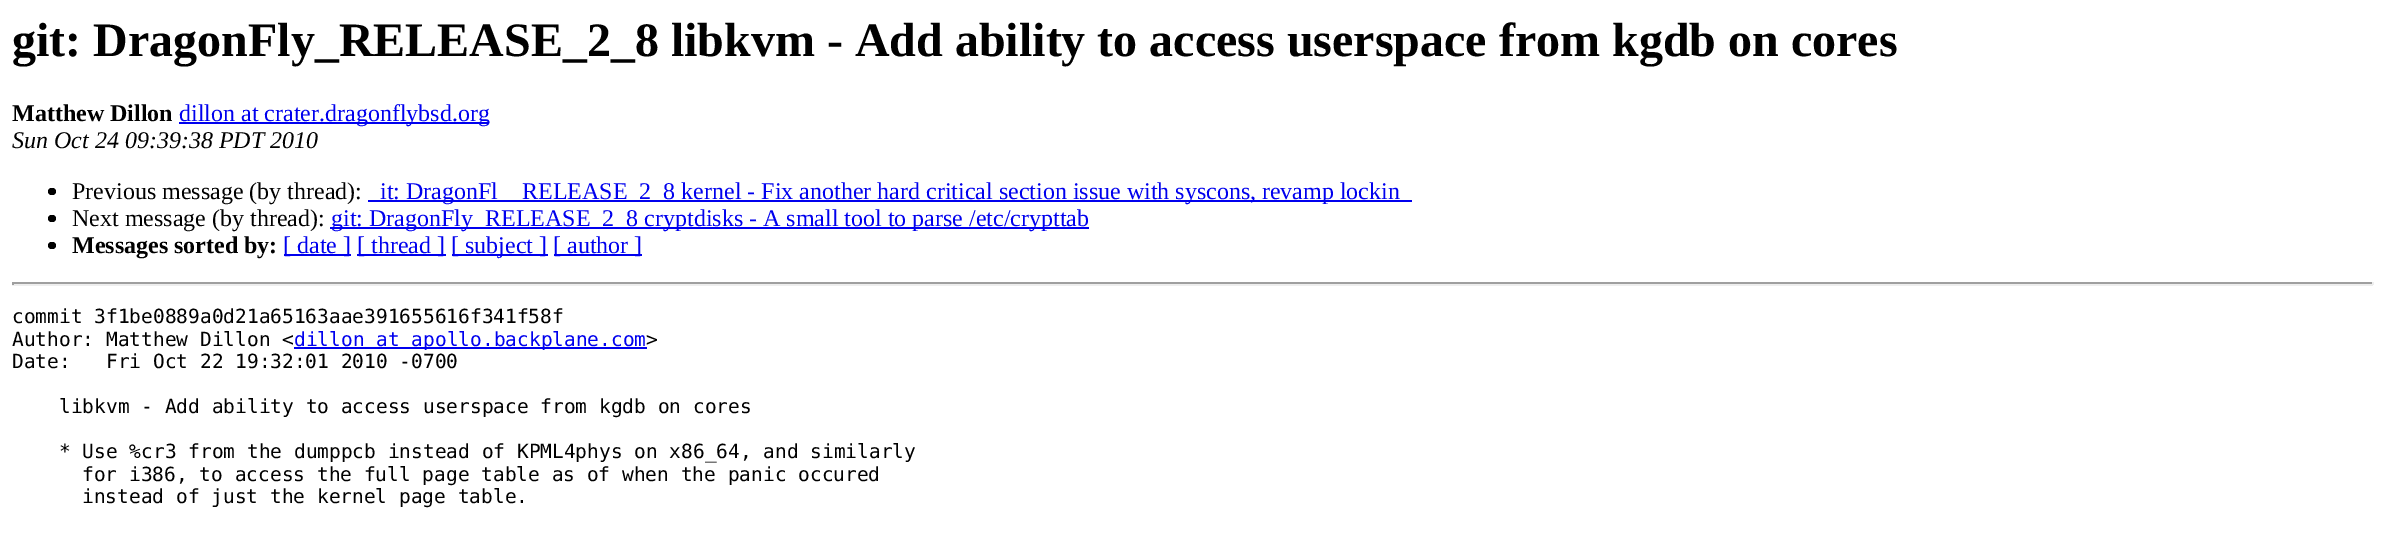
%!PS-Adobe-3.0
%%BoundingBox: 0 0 2384 538
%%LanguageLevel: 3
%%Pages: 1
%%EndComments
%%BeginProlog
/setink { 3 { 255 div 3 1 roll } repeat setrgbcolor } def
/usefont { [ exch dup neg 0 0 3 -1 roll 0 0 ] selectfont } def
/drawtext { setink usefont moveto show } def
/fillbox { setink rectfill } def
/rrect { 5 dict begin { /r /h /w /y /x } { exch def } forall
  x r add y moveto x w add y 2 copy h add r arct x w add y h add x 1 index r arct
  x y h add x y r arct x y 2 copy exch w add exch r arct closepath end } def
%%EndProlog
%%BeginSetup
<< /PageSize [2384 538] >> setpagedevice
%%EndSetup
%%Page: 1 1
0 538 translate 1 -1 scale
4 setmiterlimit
0 0 2384 538 255 255 255 fillbox
(git: DragonFly_RELEASE_2_8 libkvm - Add ability to access userspace from kgdb on cores) 12 56 /LiberationSerif-Bold 48 0 0 0 drawtext
(Matthew Dillon) 12 121 /LiberationSerif-Bold 24 0 0 0 drawtext
179 122 310 2 0 0 238 fillbox
(dillon at crater.dragonflybsd.org) 179 121 /LiberationSerif-Regular 24 0 0 238 drawtext
(Sun Oct 24 09:39:38 PDT 2010) 12 148 /LiberationSerif-Italic 24 0 0 0 drawtext
48 188 8 7 3.5 rrect fill
(Previous message \(by thread\):) 72 199 /LiberationSerif-Regular 24 0 0 0 drawtext
368 200 1044 2 0 0 238 fillbox
(it: DragonFl) 380 199 /LiberationSerif-Regular 24 0 0 238 drawtext
(RELEASE_2_8 kernel - Fix another hard critical section issue with syscons, revamp lockin) 522 199 /LiberationSerif-Regular 24 0 0 238 drawtext
0 0 0 setink
48 215 8 7 3.5 rrect fill
(Next message \(by thread\):) 72 226 /LiberationSerif-Regular 24 0 0 0 drawtext
330 227 759 2 0 0 238 fillbox
(git: DragonFly_RELEASE_2_8 cryptdisks - A small tool to parse /etc/crypttab) 331 226 /LiberationSerif-Regular 24 0 0 238 drawtext
0 0 0 setink
48 242 8 7 3.5 rrect fill
(Messages sorted by:) 72 253 /LiberationSerif-Bold 24 0 0 0 drawtext
284 254 67 2 0 0 238 fillbox
([ date ]) 283 253 /LiberationSerif-Regular 24 0 0 238 drawtext
357 254 89 2 0 0 238 fillbox
([ thread ]) 357 253 /LiberationSerif-Regular 24 0 0 238 drawtext
452 254 96 2 0 0 238 fillbox
([ subject ]) 451 253 /LiberationSerif-Regular 24 0 0 238 drawtext
554 254 88 2 0 0 238 fillbox
([ author ]) 553 253 /LiberationSerif-Regular 24 0 0 238 drawtext
12 282 2361 2 159 159 159 fillbox
2372 282 2 3 238 238 238 fillbox
12 284 2361 2 238 238 238 fillbox
12 282 2 3 159 159 159 fillbox
(commit 3f1be0889a0d21a65163aae391655616f341f58f) 12 323 /DejaVuSansMono-Regular 19.5 0 0 0 drawtext
(Author: Matthew Dillon <) 12 346 /DejaVuSansMono-Regular 19.5 0 0 0 drawtext
294 347 353 2 0 0 238 fillbox
(dillon at apollo.backplane.com) 294 346 /DejaVuSansMono-Regular 19.5 0 0 238 drawtext
(>) 646 346 /DejaVuSansMono-Regular 19.5 0 0 0 drawtext
(Date:   Fri Oct 22 19:32:01 2010 -0700) 12 368 /DejaVuSansMono-Regular 19.5 0 0 0 drawtext
(libkvm - Add ability to access userspace from kgdb on cores) 59 413 /DejaVuSansMono-Regular 19.5 0 0 0 drawtext
(* Use %cr3 from the dumppcb instead of KPML4phys on x86_64, and similarly) 59 458 /DejaVuSansMono-Regular 19.5 0 0 0 drawtext
(for i386, to access the full page table as of when the panic occured) 82 481 /DejaVuSansMono-Regular 19.5 0 0 0 drawtext
(instead of just the kernel page table.) 82 503 /DejaVuSansMono-Regular 19.5 0 0 0 drawtext
showpage
%%EOF
